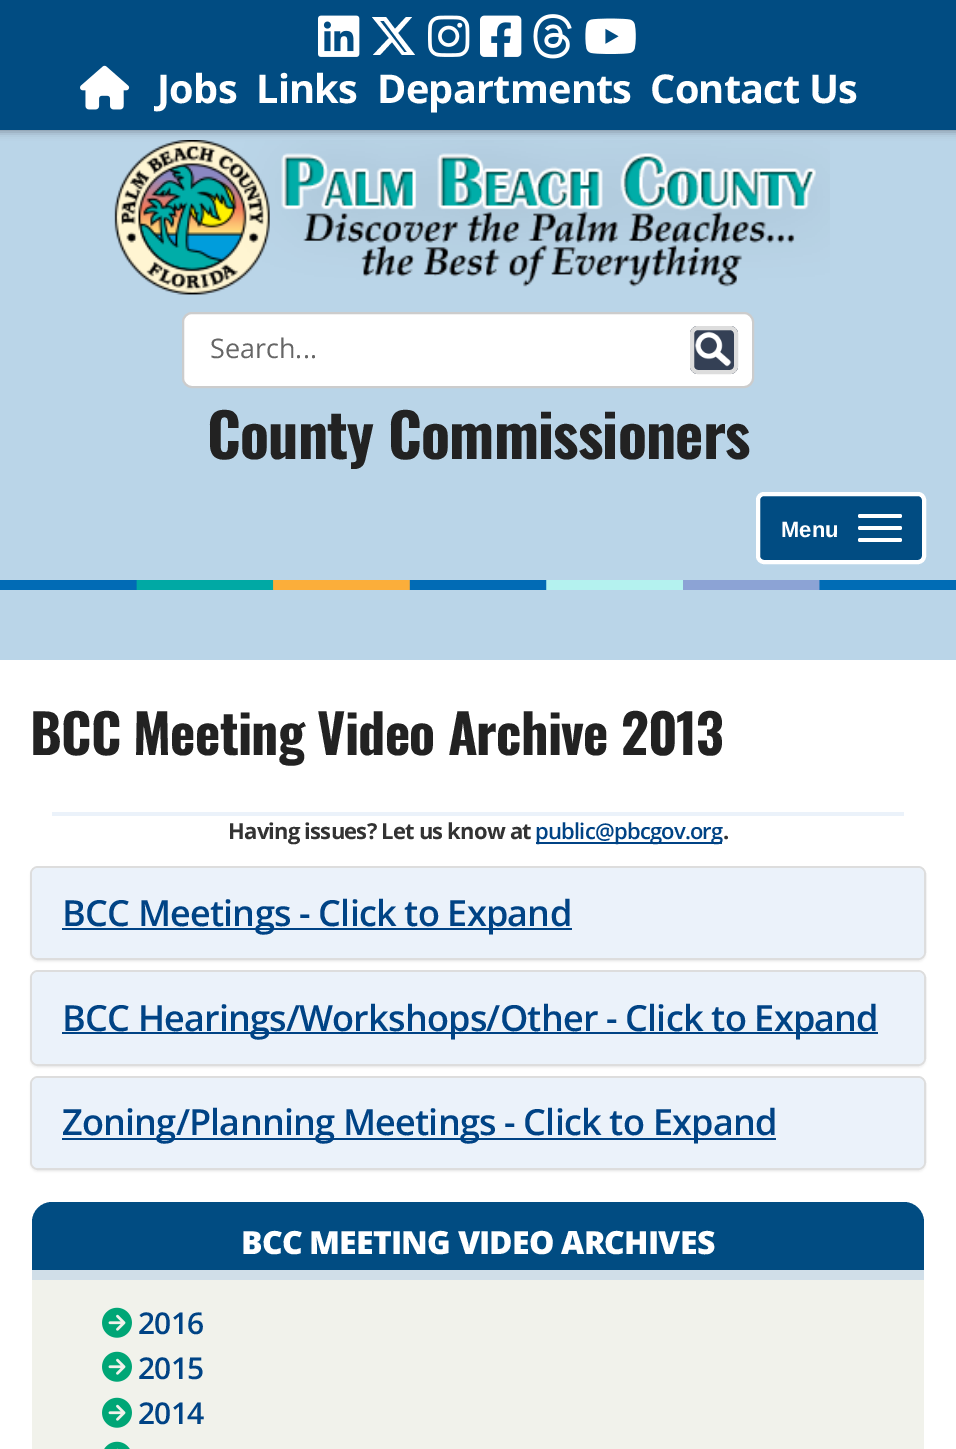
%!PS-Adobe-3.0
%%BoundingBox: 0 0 956 1449
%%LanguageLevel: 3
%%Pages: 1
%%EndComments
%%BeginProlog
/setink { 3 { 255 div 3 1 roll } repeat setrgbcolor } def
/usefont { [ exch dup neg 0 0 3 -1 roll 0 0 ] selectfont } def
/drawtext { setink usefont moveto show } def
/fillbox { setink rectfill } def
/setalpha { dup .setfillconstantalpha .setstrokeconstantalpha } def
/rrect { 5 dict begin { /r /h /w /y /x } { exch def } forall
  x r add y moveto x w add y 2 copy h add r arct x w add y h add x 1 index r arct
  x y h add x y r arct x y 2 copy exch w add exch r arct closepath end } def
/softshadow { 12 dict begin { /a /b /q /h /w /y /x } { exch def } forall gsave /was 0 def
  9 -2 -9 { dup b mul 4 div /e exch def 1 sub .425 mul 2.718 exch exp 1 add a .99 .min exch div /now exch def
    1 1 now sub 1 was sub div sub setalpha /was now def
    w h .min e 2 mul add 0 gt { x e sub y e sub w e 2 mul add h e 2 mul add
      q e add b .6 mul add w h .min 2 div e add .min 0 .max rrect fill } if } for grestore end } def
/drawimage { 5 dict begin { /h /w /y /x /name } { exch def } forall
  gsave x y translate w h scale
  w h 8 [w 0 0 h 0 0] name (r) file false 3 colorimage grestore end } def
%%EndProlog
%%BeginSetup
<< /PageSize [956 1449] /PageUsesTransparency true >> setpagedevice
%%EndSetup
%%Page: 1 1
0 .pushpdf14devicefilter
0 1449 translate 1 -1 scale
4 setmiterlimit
0 0 956 1449 186 213 232 fillbox
0 0 0 setink
-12 2 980 130 0 4 0.3 softshadow
0 0 956 130 1 76 130 fillbox
(assets/img1.rgb) 318 15 42 42 drawimage
255 255 255 setink
406 17 moveto 412 17 lineto 398 33 lineto 415 55 lineto 402 55 lineto 392 42 lineto 380 55 lineto 373 55 lineto 389 38 lineto 372 17 lineto 386 17 lineto 395 29 lineto closepath 404 52 moveto 407 52 lineto 384 21 lineto 380 21 lineto closepath fill
(assets/img2.rgb) 428 15 42 42 drawimage
(assets/img3.rgb) 480 15 42 42 drawimage
(assets/img4.rgb) 533 14 39 45 drawimage
(assets/img5.rgb) 585 18 51 36 drawimage
(assets/img6.rgb) 80 65 50 45 drawimage
/OpenSans-Bold 39.75 usefont
157 103 moveto -0.8 0 (Jobs) ashow
256 103 moveto -0.8 0 (Links) ashow
377 103 moveto -0.8 0 (Departments) ashow
650 103 moveto -0.8 0 (Contact Us) ashow
(assets/img7.rgb) 114 140 716 155 drawimage
183 313 570 74 9 rrect gsave fill grestore
204 204 204 setink
2 setlinewidth
stroke
(Search...) 210 358 /OpenSans-Regular 27 102 102 102 drawtext
52 64 85 setink
690 326 48 48 8 rrect fill
(assets/img8.rgb) 694 331 38 36 drawimage
221 221 221 setink
4 setlinewidth
692 328 44 44 6 rrect stroke
/Oswald-Bold 60 usefont
34 34 34 setink
207 459 moveto -0.8 0 (County Commissioners) ashow
1 76 130 setink
758 494 166 68 6 rrect gsave fill grestore
255 255 255 setink
stroke
(Menu) 781 537 /LiberationSans-Bold 22 255 255 255 drawtext
858 514 44 4 2 rrect fill
858 526 44 4 2 rrect fill
858 538 44 4 2 rrect fill
(assets/img9.rgb) 0 580 956 10 drawimage
0 660 956 789 255 255 255 fillbox
/Oswald-Bold 54 usefont
34 34 34 setink
30 755 moveto -0.8 0 (BCC Meeting Video Archive 2013) ashow
52 812 852 4 235 242 250 fillbox
/OpenSans-Bold 22 usefont
51 51 51 setink
228 839 moveto -0.8 0 (Having issues? Let us know at) ashow
536 842 186 2 0 67 133 fillbox
/OpenSans-SemiBold 22 usefont
535 839 moveto -0.8 0 (public@pbcgov.org) ashow
/OpenSans-Bold 22 usefont
51 51 51 setink
723 839 moveto -0.8 0 (.) ashow
0 0 0 setink
30 868 896 94 8 1 0.05 softshadow
221 221 221 setink
2 setlinewidth
31 867 894 92 7 rrect stroke
235 242 250 setink
32 868 892 90 6 rrect fill
62 928 510 2 0 67 133 fillbox
/OpenSans-SemiBold 36 usefont
62 926 moveto -0.8 0 (BCC Meetings - Click to Expand) ashow
0 0 0 setink
30 972 896 96 8 1 0.05 softshadow
221 221 221 setink
31 971 894 94 7 rrect stroke
235 242 250 setink
32 972 892 92 6 rrect fill
62 1032 816 2 0 67 133 fillbox
62 1031 moveto -0.8 0 (BCC Hearings/Workshops/Other - Click to Expand) ashow
0 0 0 setink
30 1078 896 94 8 1 0.05 softshadow
221 221 221 setink
31 1077 894 92 7 rrect stroke
235 242 250 setink
32 1078 892 90 6 rrect fill
62 1138 714 2 0 67 133 fillbox
62 1135 moveto -0.8 0 (Zoning/Planning Meetings - Click to Expand) ashow
1 76 130 setink
52 1202 moveto 904 1202 lineto 915 1202 924 1211 924 1222 curveto 924 1280 lineto 32 1280 lineto 32 1222 lineto 32 1211 41 1202 52 1202 curveto closepath fill
32 1270 892 10 208 222 232 fillbox
/OpenSans-ExtraBold 32 usefont
255 255 255 setink
241 1254 moveto -0.8 0 (BCC MEETING VIDEO ARCHIVES) ashow
32 1280 892 169 241 242 235 fillbox
(assets/img10.rgb) 102 1307 30 31 drawimage
/OpenSans-SemiBold 30 usefont
0 67 133 setink
138 1334 moveto -0.8 0 (2016) ashow
(assets/img10.rgb) 102 1351 30 31 drawimage
138 1379 moveto -0.8 0 (2015) ashow
(assets/img10.rgb) 102 1397 30 31 drawimage
138 1424 moveto -0.8 0 (2014) ashow
(assets/img11.rgb) 104 1441 26 8 drawimage
.poppdf14devicefilter showpage
%%EOF
